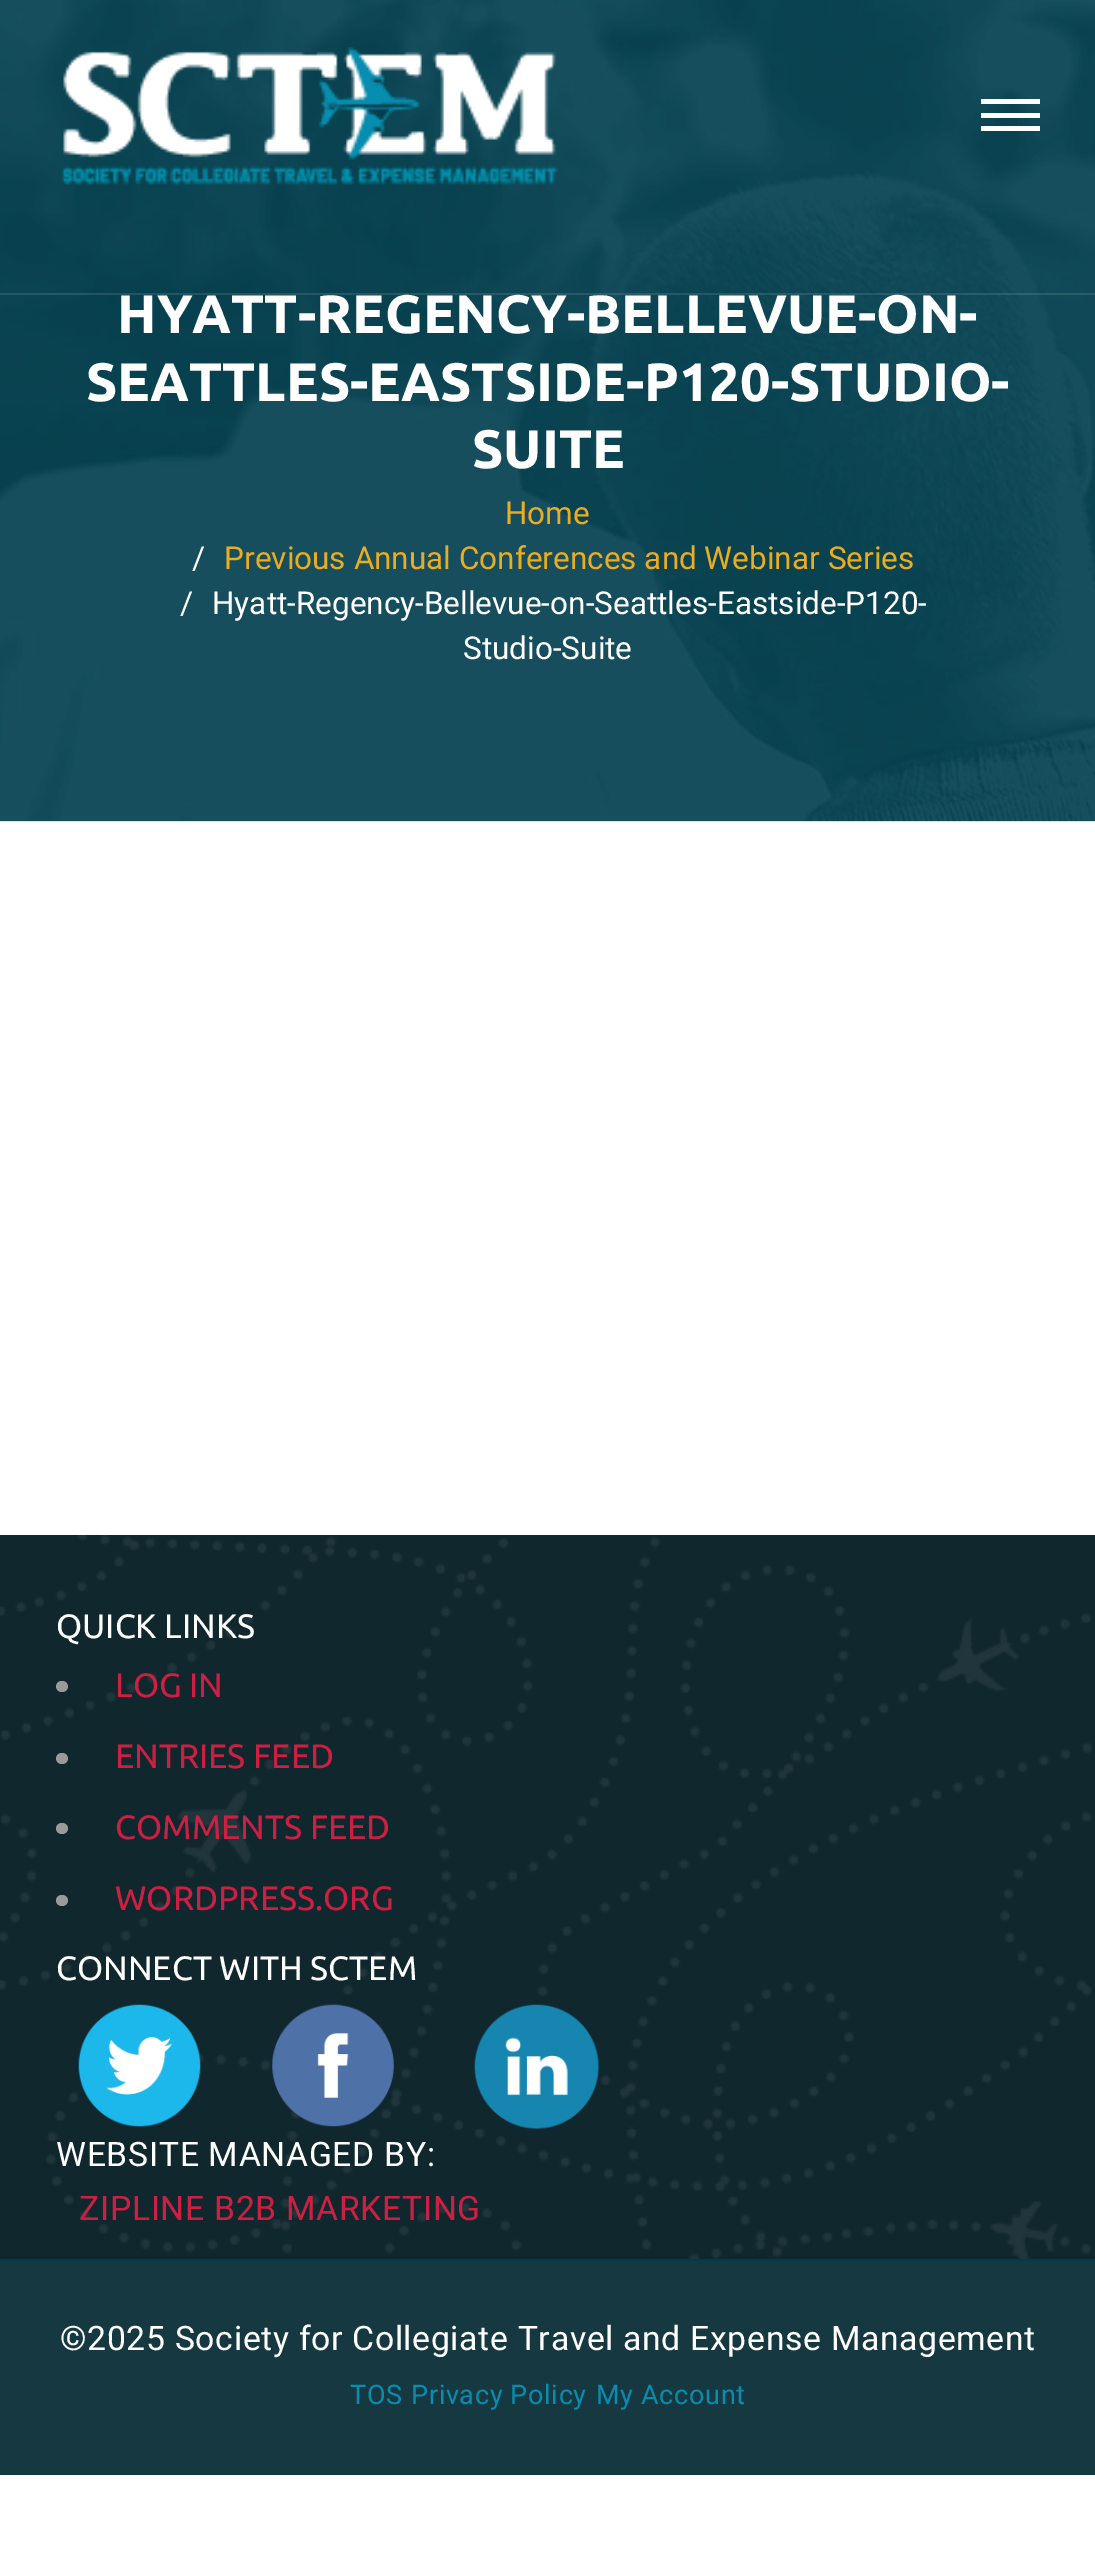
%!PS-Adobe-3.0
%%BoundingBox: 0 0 1095 2560
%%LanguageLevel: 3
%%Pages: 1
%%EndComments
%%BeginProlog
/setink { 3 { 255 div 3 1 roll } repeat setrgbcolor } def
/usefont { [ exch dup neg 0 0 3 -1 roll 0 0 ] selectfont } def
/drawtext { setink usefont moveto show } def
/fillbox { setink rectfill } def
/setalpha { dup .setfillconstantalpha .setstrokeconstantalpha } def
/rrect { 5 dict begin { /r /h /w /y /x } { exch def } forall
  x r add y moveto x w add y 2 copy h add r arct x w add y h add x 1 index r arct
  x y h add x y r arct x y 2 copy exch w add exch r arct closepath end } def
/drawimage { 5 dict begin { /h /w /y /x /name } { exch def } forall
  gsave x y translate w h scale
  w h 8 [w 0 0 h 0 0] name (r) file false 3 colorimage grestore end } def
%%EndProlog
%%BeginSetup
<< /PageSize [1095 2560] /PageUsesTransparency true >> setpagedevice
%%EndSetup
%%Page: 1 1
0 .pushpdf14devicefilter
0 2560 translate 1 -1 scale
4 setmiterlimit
0 0 1095 2560 255 255 255 fillbox
(assets/img2.rgb) 0 0 1095 822 drawimage
0.12 setalpha
0 293 1095 2 236 236 236 fillbox
1 setalpha
(assets/img1.rgb) 61 47 498 138 drawimage
981 113 59 5 255 255 255 fillbox
981 99 59 5 255 255 255 fillbox
981 126 59 5 255 255 255 fillbox
(HYATT-REGENCY-BELLEVUE-ON-) 117 333 /Ubuntu-Bold 54 255 255 255 drawtext
(SEATTLES-EASTSIDE-P120-STUDIO-) 86 401 /Ubuntu-Bold 54 255 255 255 drawtext
(SUITE) 472 468 /Ubuntu-Bold 54 255 255 255 drawtext
(Home) 505 524 /Roboto-Regular 31.5 234 172 33 drawtext
(/) 192 569 /Roboto-Regular 31.5 255 255 255 drawtext
(Previous Annual Conferences and Webinar Series) 224 569 /Roboto-Regular 31.5 234 172 33 drawtext
(/) 180 614 /Roboto-Regular 31.5 255 255 255 drawtext
(Hyatt-Regency-Bellevue-on-Seattles-Eastside-P120-) 212 614 /Roboto-Regular 31.5 255 255 255 drawtext
(Studio-Suite) 463 659 /Roboto-Regular 31.5 255 255 255 drawtext
0 1535 1095 724 16 39 45 fillbox
(assets/img3.rgb) 0 1535 1092 724 drawimage
(QUICK LINKS) 56 1638 /Ubuntu-Regular 33.75 255 255 255 drawtext
154 154 154 setink
56 1681 12 11 5.5 rrect fill
(LOG IN) 115 1697 /Ubuntu-Regular 33.75 205 31 67 drawtext
154 154 154 setink
56 1753 12 11 5.5 rrect fill
(ENTRIES FEED) 115 1768 /Ubuntu-Regular 33.75 205 31 67 drawtext
154 154 154 setink
56 1823 12 11 5.5 rrect fill
(COMMENTS FEED) 115 1839 /Ubuntu-Regular 33.75 205 31 67 drawtext
154 154 154 setink
56 1895 12 11 5.5 rrect fill
(WORDPRESS.ORG) 115 1910 /Ubuntu-Regular 33.75 205 31 67 drawtext
(CONNECT WITH SCTEM) 56 1980 /Ubuntu-Regular 33.75 255 255 255 drawtext
(assets/img4.rgb) 78 2004 123 123 drawimage
(assets/img5.rgb) 272 2004 122 123 drawimage
(assets/img6.rgb) 474 2004 125 125 drawimage
/Roboto-Regular 33.75 usefont
56 2166 moveto 0.67 0 (WEBSITE MANAGED BY:) ashow
205 31 67 setink
79 2220 moveto 0.67 0 (ZIPLINE B2B MARKETING) ashow
0 2261 1095 214 22 56 64 fillbox
0 2259 1095 2 0 59 74 fillbox
255 255 255 setink
60 2350 moveto 0.67 0 (©2025 Society for Collegiate Travel and Expense Management) ashow
/Roboto-Regular 27 usefont
7 141 175 setink
350 2404 moveto 0.67 0 (TOS) ashow
411 2404 moveto 0.67 0 (Privacy Policy) ashow
596 2404 moveto 0.67 0 (My Account) ashow
.poppdf14devicefilter showpage
%%EOF
